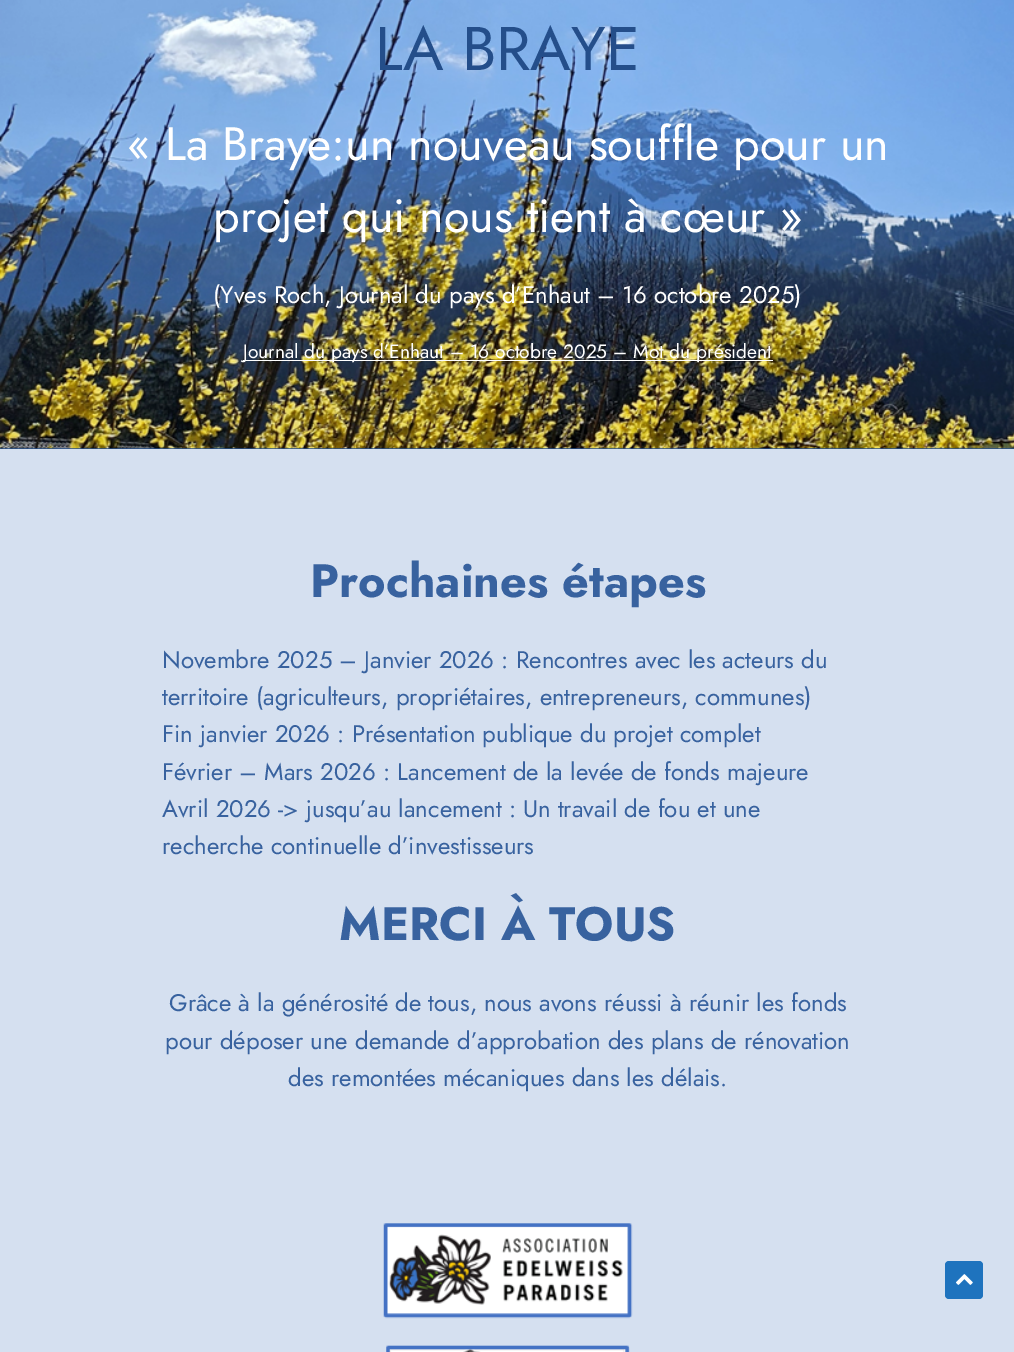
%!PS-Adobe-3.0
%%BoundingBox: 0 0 1014 1352
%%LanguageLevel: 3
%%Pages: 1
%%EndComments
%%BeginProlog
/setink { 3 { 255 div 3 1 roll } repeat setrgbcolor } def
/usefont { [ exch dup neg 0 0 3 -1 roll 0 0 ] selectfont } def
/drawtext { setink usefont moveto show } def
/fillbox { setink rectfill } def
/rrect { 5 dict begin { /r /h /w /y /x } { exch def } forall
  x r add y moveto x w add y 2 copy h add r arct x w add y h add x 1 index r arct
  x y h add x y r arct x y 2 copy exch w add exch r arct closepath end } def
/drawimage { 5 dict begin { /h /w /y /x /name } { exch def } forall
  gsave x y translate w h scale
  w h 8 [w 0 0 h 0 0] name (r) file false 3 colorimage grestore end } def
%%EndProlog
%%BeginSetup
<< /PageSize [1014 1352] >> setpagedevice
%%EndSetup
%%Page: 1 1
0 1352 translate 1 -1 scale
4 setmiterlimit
0 0 1014 1352 36 78 138 fillbox
(assets/img1.rgb) 0 0 1014 449 drawimage
(LA BRAYE) 375 70 /Jost-Regular 61.5 36 78 138 drawtext
(« La Braye:un nouveau souffle pour un) 127 160 /Jost-Regular 46.7 255 255 255 drawtext
(projet qui nous tient à cœur ») 213 232 /Jost-Regular 46.7 255 255 255 drawtext
(\(Yves Roch, Journal du pays d’Enhaut – 16 octobre 2025\)) 213 303 /Jost-Regular 24 255 255 255 drawtext
243 360 530 1 255 255 255 fillbox
(Journal du pays d’Enhaut – 16 octobre 2025 – Mot du président) 243 358 /Jost-Regular 19.2 255 255 255 drawtext
0 449 1014 903 213 224 240 fillbox
(Prochaines étapes) 310 597 /Jost-Bold 46.7 56 98 159 drawtext
(Novembre 2025 – Janvier 2026 : Rencontres avec les acteurs du) 162 668 /Jost-Regular 24 56 98 159 drawtext
(territoire \(agriculteurs, propriétaires, entrepreneurs, communes\)) 162 705 /Jost-Regular 24 56 98 159 drawtext
(Fin janvier 2026 : Présentation publique du projet complet) 162 742 /Jost-Regular 24 56 98 159 drawtext
(Février – Mars 2026 : Lancement de la levée de fonds majeure) 162 780 /Jost-Regular 24 56 98 159 drawtext
(Avril 2026 -> jusqu’au lancement : Un travail de fou et une) 162 817 /Jost-Regular 24 56 98 159 drawtext
(recherche continuelle d’investisseurs) 162 854 /Jost-Regular 24 56 98 159 drawtext
(MERCI À TOUS) 339 940 /Jost-Bold 46.7 56 98 159 drawtext
(Grâce à la générosité de tous, nous avons réussi à réunir les fonds) 169 1011 /Jost-Regular 24 56 98 159 drawtext
(pour déposer une demande d’approbation des plans de rénovation) 165 1049 /Jost-Regular 24 56 98 159 drawtext
(des remontées mécaniques dans les délais.) 288 1086 /Jost-Regular 24 56 98 159 drawtext
(assets/img2.rgb) 383 1223 250 96 drawimage
(assets/img3.rgb) 386 1345 244 7 drawimage
30 115 190 setink
945 1261 38 38 4 rrect fill
(assets/img4.rgb) 956 1274 17 11 drawimage
showpage
%%EOF
